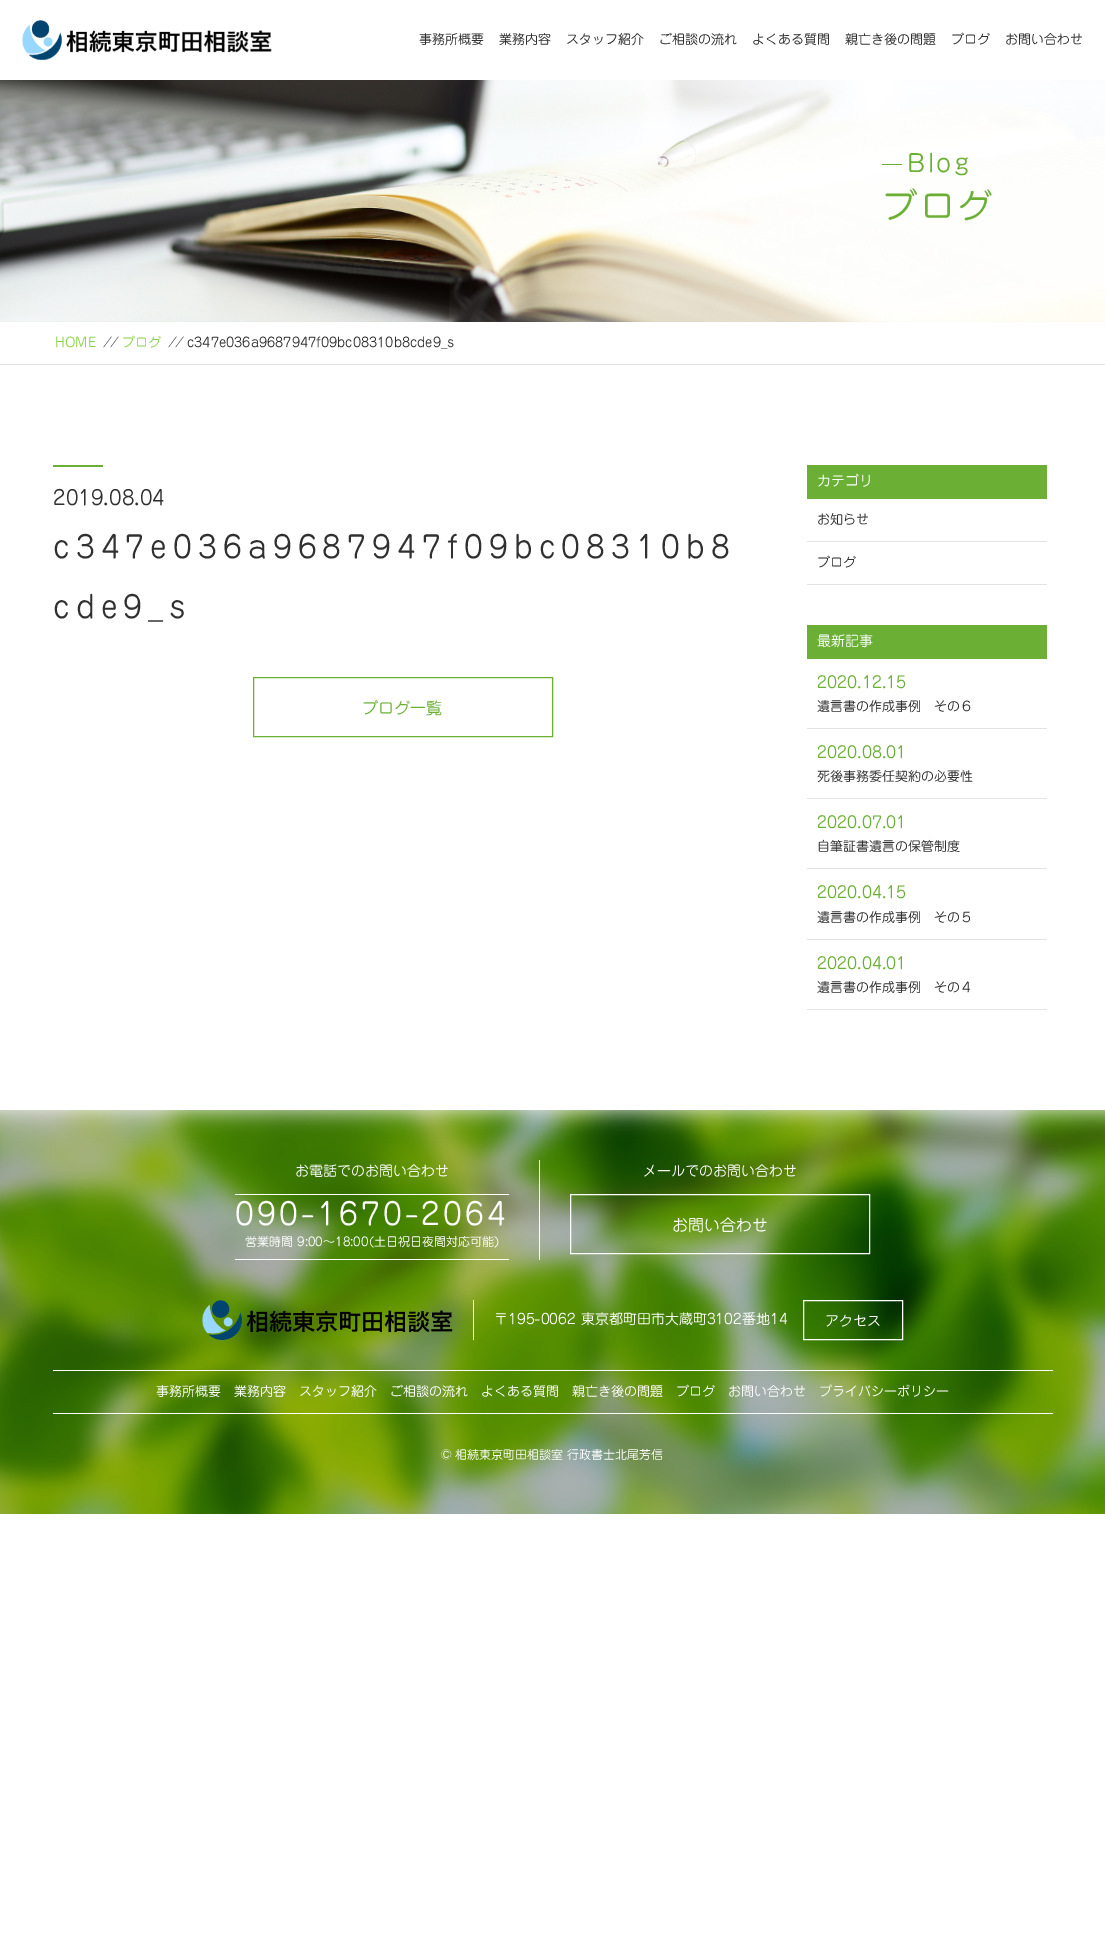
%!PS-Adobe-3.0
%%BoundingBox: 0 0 1105 1940
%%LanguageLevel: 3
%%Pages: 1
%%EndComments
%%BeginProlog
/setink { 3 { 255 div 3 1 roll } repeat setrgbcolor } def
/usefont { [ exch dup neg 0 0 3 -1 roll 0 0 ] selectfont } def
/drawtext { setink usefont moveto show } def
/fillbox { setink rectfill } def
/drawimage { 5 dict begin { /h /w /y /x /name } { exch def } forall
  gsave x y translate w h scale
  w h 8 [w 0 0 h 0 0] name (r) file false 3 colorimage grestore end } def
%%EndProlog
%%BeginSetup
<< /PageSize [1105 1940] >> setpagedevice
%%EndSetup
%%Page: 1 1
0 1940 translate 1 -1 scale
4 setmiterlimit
0 0 1105 1940 255 255 255 fillbox
(assets/img1.rgb) 22 20 250 40 drawimage
(事務所概要) 419 44 /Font-Regular 13 48 48 48 drawtext
(業務内容) 499 44 /Font-Regular 13 48 48 48 drawtext
(スタッフ紹介) 566 44 /Font-Regular 13 48 48 48 drawtext
(ご相談の流れ) 659 44 /Font-Regular 13 48 48 48 drawtext
(よくある質問) 752 44 /Font-Regular 13 48 48 48 drawtext
(親亡き後の問題) 845 44 /Font-Regular 13 48 48 48 drawtext
(ブログ) 951 44 /Font-Regular 13 48 48 48 drawtext
(お問い合わせ) 1005 44 /Font-Regular 13 48 48 48 drawtext
(assets/img2.rgb) 0 80 1105 242 drawimage
882 164 20 1 107 176 53 fillbox
/Font-Regular 24 usefont
907 172 moveto 2.5 0 (Blog) ashow
/Font-Regular 35 usefont
882 219 moveto 2.5 0 (ブログ) ashow
0 364 1105 1 227 227 227 fillbox
(HOME) 55 347 /Font-Regular 13 137 212 72 drawtext
(//) 103 347 /Font-Italic 13 48 48 48 drawtext
(ブログ) 122 347 /Font-Regular 13 137 212 72 drawtext
(//) 168 347 /Font-Italic 13 48 48 48 drawtext
(c347e036a9687947f09bc08310b8cde9_s) 187 347 /Font-Regular 13 48 48 48 drawtext
53 465 50 2 107 176 53 fillbox
(2019.08.04) 53 505 /Font-Regular 20 48 48 48 drawtext
/Font-Regular 30 usefont
53 558 moveto 6 0 (c347e036a9687947f09bc08310b8) ashow
53 618 moveto 6 0 (cde9_s) ashow
107 176 53 setink
253.5 677.5 299 59 rectstroke
(ブログ一覧) 362 714 /Font-Regular 16 107 176 53 drawtext
807 465 240 34 107 176 53 fillbox
(カテゴリ) 817 486 /Font-Regular 14 255 255 255 drawtext
807 541 240 1 227 227 227 fillbox
(お知らせ) 817 524 /Font-Regular 13 48 48 48 drawtext
807 584 240 1 227 227 227 fillbox
(ブログ) 817 567 /Font-Regular 13 48 48 48 drawtext
807 625 240 34 107 176 53 fillbox
(最新記事) 817 646 /Font-Regular 14 255 255 255 drawtext
807 728 240 1 227 227 227 fillbox
(2020.12.15) 817 688 /Font-Regular 16 107 176 53 drawtext
(遺言書の作成事例　その６) 817 711 /Font-Regular 13 48 48 48 drawtext
807 798 240 1 227 227 227 fillbox
(2020.08.01) 817 758 /Font-Regular 16 107 176 53 drawtext
(死後事務委任契約の必要性) 817 781 /Font-Regular 13 48 48 48 drawtext
807 868 240 1 227 227 227 fillbox
(2020.07.01) 817 828 /Font-Regular 16 107 176 53 drawtext
(自筆証書遺言の保管制度) 817 851 /Font-Regular 13 48 48 48 drawtext
807 939 240 1 227 227 227 fillbox
(2020.04.15) 817 898 /Font-Regular 16 107 176 53 drawtext
(遺言書の作成事例　その５) 817 922 /Font-Regular 13 48 48 48 drawtext
807 1009 240 1 227 227 227 fillbox
(2020.04.01) 817 969 /Font-Regular 16 107 176 53 drawtext
(遺言書の作成事例　その４) 817 992 /Font-Regular 13 48 48 48 drawtext
(assets/img3.rgb) 0 1110 1105 404 drawimage
539 1160 1 100 255 255 255 fillbox
(お電話でのお問い合わせ) 295 1176 /Font-Regular 14 255 255 255 drawtext
235 1194 274 1 255 255 255 fillbox
235 1259 274 1 255 255 255 fillbox
/Font-Regular 30 usefont
235 1225 moveto 3 0 (090-1670-2064) ashow
(営業時間 9:00～18:00\(土日祝日夜間対応可能\)) 245 1246 /Font-Regular 12 255 255 255 drawtext
(メールでのお問い合わせ) 643 1176 /Font-Regular 14 255 255 255 drawtext
570.5 1194.5 299 59 rectstroke
(お問い合わせ) 672 1231 /Font-Regular 16 255 255 255 drawtext
473 1300 1 40 255 255 255 fillbox
(assets/img4.rgb) 202 1300 251 40 drawimage
(〒195-0062 東京都町田市大蔵町3102番地14) 494 1324 /Font-Regular 14 255 255 255 drawtext
803.5 1300.5 99 39 rectstroke
(アクセス) 825 1326 /Font-Regular 14 255 255 255 drawtext
53 1370 1000 1 255 255 255 fillbox
53 1413 1000 1 255 255 255 fillbox
(事務所概要) 156 1396 /Font-Regular 13 255 255 255 drawtext
(業務内容) 234 1396 /Font-Regular 13 255 255 255 drawtext
(スタッフ紹介) 299 1396 /Font-Regular 13 255 255 255 drawtext
(ご相談の流れ) 390 1396 /Font-Regular 13 255 255 255 drawtext
(よくある質問) 481 1396 /Font-Regular 13 255 255 255 drawtext
(親亡き後の問題) 572 1396 /Font-Regular 13 255 255 255 drawtext
(ブログ) 676 1396 /Font-Regular 13 255 255 255 drawtext
(お問い合わせ) 728 1396 /Font-Regular 13 255 255 255 drawtext
(プライバシーポリシー) 819 1396 /Font-Regular 13 255 255 255 drawtext
(© 相続東京町田相談室 行政書士北尾芳信) 441 1459 /Font-Regular 12 255 255 255 drawtext
showpage
%%EOF
